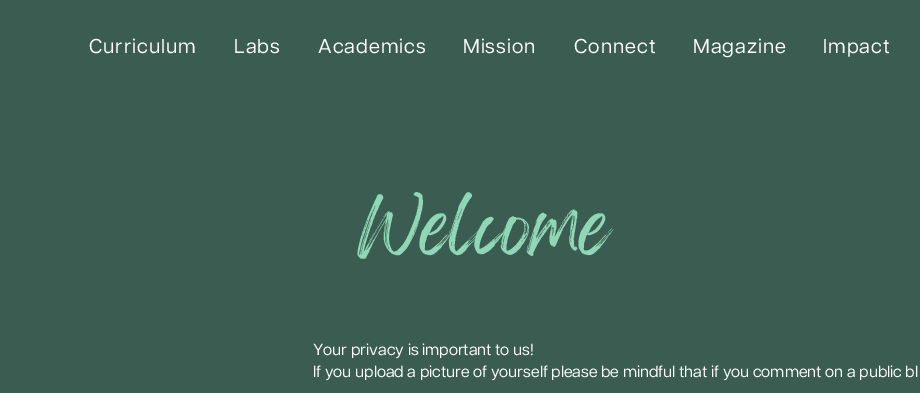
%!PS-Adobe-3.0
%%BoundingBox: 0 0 920 393
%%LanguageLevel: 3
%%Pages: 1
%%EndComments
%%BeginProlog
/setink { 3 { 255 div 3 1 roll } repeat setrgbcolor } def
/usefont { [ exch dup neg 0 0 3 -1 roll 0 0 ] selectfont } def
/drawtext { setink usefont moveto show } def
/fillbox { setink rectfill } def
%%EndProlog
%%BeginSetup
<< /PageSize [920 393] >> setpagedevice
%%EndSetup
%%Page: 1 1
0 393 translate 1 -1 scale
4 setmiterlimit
0 0 920 393 59 93 81 fillbox
/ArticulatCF-Regular 20 usefont
255 255 255 setink
89 53 moveto 1 0 (Curriculum) ashow
234 53 moveto 1 0 (Labs) ashow
318 53 moveto 1 0 (Academics) ashow
463 53 moveto 1 0 (Mission) ashow
574 53 moveto 1 0 (Connect) ashow
693 53 moveto 1 0 (Magazine) ashow
823 53 moveto 1 0 (Impact) ashow
(Welcome) 357 259 /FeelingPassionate-Regular 66 143 215 182 drawtext
(Your privacy is important to us!) 313 355 /ArticulatCF-Regular 16 255 255 255 drawtext
(If you upload a picture of yourself please be mindful that if you comment on a public bl) 313 377 /ArticulatCF-Regular 16 255 255 255 drawtext
showpage
%%EOF
